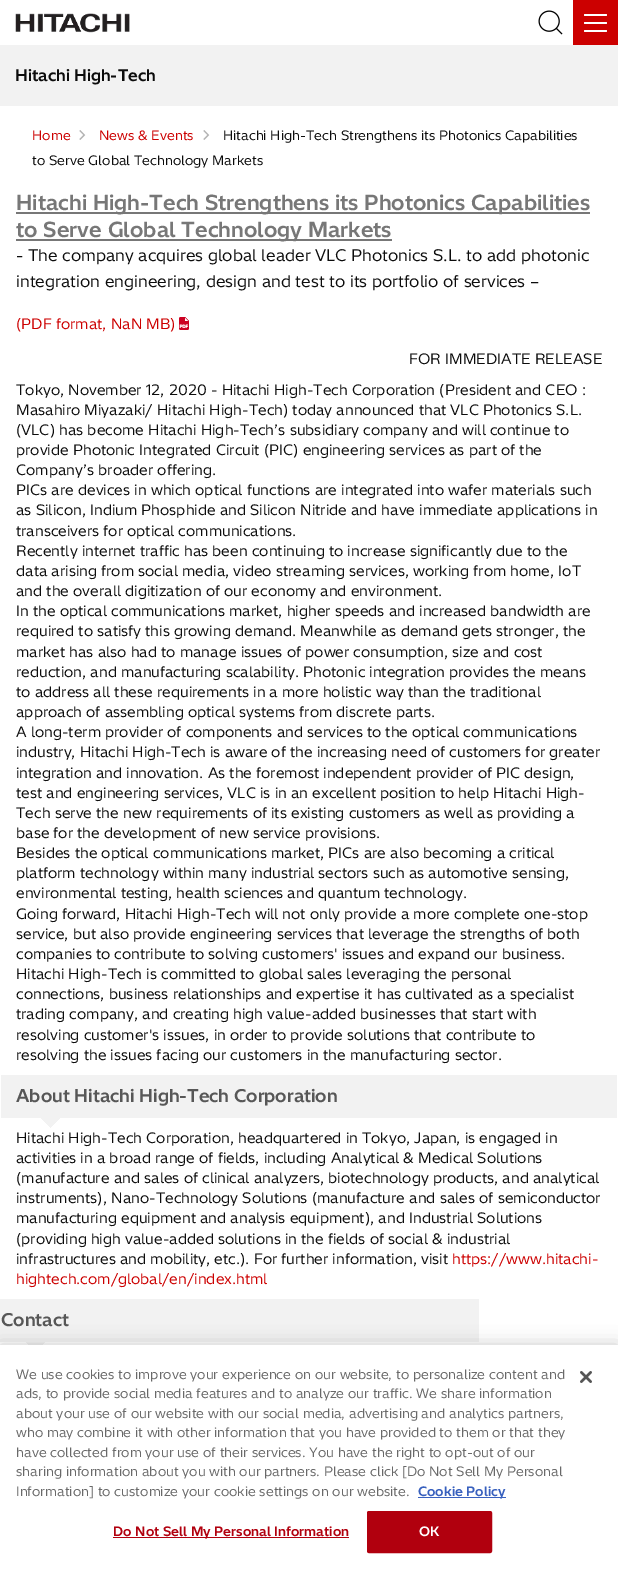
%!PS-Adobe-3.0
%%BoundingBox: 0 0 618 1569
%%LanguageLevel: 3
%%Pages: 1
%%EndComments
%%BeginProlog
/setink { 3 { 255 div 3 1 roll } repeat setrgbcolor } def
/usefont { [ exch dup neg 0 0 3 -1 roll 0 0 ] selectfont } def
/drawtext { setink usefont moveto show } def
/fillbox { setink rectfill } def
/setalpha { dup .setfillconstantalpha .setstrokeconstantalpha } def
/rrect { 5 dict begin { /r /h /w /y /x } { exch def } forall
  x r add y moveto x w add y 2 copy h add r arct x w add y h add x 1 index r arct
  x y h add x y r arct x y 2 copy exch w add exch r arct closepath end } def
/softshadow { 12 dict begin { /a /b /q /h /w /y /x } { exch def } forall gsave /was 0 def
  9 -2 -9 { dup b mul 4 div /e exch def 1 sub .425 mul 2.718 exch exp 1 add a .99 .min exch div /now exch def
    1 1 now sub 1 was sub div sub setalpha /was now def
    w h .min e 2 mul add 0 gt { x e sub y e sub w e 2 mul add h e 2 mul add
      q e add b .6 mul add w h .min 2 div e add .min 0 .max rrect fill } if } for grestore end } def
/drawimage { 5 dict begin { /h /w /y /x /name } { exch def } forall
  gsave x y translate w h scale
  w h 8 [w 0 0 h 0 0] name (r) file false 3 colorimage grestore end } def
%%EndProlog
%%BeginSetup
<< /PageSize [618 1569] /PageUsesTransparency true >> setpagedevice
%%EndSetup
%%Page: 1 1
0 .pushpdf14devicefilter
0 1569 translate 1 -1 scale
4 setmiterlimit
0 0 618 1569 255 255 255 fillbox
(assets/img1.rgb) 15 13 115 20 drawimage
(assets/img2.rgb) 538 10 25 25 drawimage
573 0 45 45 204 0 0 fillbox
255 255 255 setink
584 14 23 2 1 rrect fill
584 22 23 2 1 rrect fill
584 30 23 2 1 rrect fill
0 45 618 61 242 242 242 fillbox
(Hitachi High-Tech) 15 81 /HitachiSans-Bold 16 12 12 12 drawtext
(Home) 32 140 /HitachiSans-Regular 13 204 0 0 drawtext
(assets/img3.rgb) 79 130 7 10 drawimage
(News & Events) 99 140 /HitachiSans-Regular 13 204 0 0 drawtext
(assets/img3.rgb) 203 130 7 10 drawimage
(Hitachi High-Tech Strengthens its Photonics Capabilities) 223 140 /HitachiSans-Regular 13 12 12 12 drawtext
(to Serve Global Technology Markets) 32 165 /HitachiSans-Regular 13 12 12 12 drawtext
16 212 574 2 119 119 119 fillbox
(Hitachi High-Tech Strengthens its Photonics Capabilities) 16 210 /HitachiSans-Bold 20.8 119 119 119 drawtext
16 239 376 2 119 119 119 fillbox
(to Serve Global Technology Markets) 16 237 /HitachiSans-Bold 20.8 119 119 119 drawtext
(- The company acquires global leader VLC Photonics S.L. to add photonic) 16 261 /HitachiSans-Regular 16 12 12 12 drawtext
(integration engineering, design and test to its portfolio of services –) 16 287 /HitachiSans-Regular 16 12 12 12 drawtext
(\(PDF format, NaN MB\)) 16 329 /HitachiSans-Regular 14.4 204 0 0 drawtext
(assets/img4.rgb) 179 317 10 13 drawimage
(FOR IMMEDIATE RELEASE) 409 364 /HitachiSans-Regular 14.4 12 12 12 drawtext
(Tokyo, November 12, 2020 - Hitachi High-Tech Corporation \(President and CEO :) 16 395 /HitachiSans-Regular 14.4 12 12 12 drawtext
(Masahiro Miyazaki/ Hitachi High-Tech\) today announced that VLC Photonics S.L.) 16 415 /HitachiSans-Regular 14.4 12 12 12 drawtext
(\(VLC\) has become Hitachi High-Tech’s subsidiary company and will continue to) 16 435 /HitachiSans-Regular 14.4 12 12 12 drawtext
(provide Photonic Integrated Circuit \(PIC\) engineering services as part of the) 16 455 /HitachiSans-Regular 14.4 12 12 12 drawtext
(Company’s broader offering.) 16 475 /HitachiSans-Regular 14.4 12 12 12 drawtext
(PICs are devices in which optical functions are integrated into wafer materials such) 16 495 /HitachiSans-Regular 14.4 12 12 12 drawtext
(as Silicon, Indium Phosphide and Silicon Nitride and have immediate applications in) 16 515 /HitachiSans-Regular 14.4 12 12 12 drawtext
(transceivers for optical communications.) 16 536 /HitachiSans-Regular 14.4 12 12 12 drawtext
(Recently internet traffic has been continuing to increase significantly due to the) 16 556 /HitachiSans-Regular 14.4 12 12 12 drawtext
(data arising from social media, video streaming services, working from home, IoT) 16 576 /HitachiSans-Regular 14.4 12 12 12 drawtext
(and the overall digitization of our economy and environment.) 16 596 /HitachiSans-Regular 14.4 12 12 12 drawtext
(In the optical communications market, higher speeds and increased bandwidth are) 16 616 /HitachiSans-Regular 14.4 12 12 12 drawtext
(required to satisfy this growing demand. Meanwhile as demand gets stronger, the) 16 636 /HitachiSans-Regular 14.4 12 12 12 drawtext
(market has also had to manage issues of power consumption, size and cost) 16 657 /HitachiSans-Regular 14.4 12 12 12 drawtext
(reduction, and manufacturing scalability. Photonic integration provides the means) 16 677 /HitachiSans-Regular 14.4 12 12 12 drawtext
(to address all these requirements in a more holistic way than the traditional) 16 697 /HitachiSans-Regular 14.4 12 12 12 drawtext
(approach of assembling optical systems from discrete parts.) 16 717 /HitachiSans-Regular 14.4 12 12 12 drawtext
(A long-term provider of components and services to the optical communications) 16 737 /HitachiSans-Regular 14.4 12 12 12 drawtext
(industry, Hitachi High-Tech is aware of the increasing need of customers for greater) 16 757 /HitachiSans-Regular 14.4 12 12 12 drawtext
(integration and innovation. As the foremost independent provider of PIC design,) 16 778 /HitachiSans-Regular 14.4 12 12 12 drawtext
(test and engineering services, VLC is in an excellent position to help Hitachi High-) 16 798 /HitachiSans-Regular 14.4 12 12 12 drawtext
(Tech serve the new requirements of its existing customers as well as providing a) 16 818 /HitachiSans-Regular 14.4 12 12 12 drawtext
(base for the development of new service provisions.) 16 838 /HitachiSans-Regular 14.4 12 12 12 drawtext
(Besides the optical communications market, PICs are also becoming a critical) 16 858 /HitachiSans-Regular 14.4 12 12 12 drawtext
(platform technology within many industrial sectors such as automotive sensing,) 16 878 /HitachiSans-Regular 14.4 12 12 12 drawtext
(environmental testing, health sciences and quantum technology.) 16 898 /HitachiSans-Regular 14.4 12 12 12 drawtext
(Going forward, Hitachi High-Tech will not only provide a more complete one-stop) 16 919 /HitachiSans-Regular 14.4 12 12 12 drawtext
(service, but also provide engineering services that leverage the strengths of both) 16 939 /HitachiSans-Regular 14.4 12 12 12 drawtext
(companies to contribute to solving customers' issues and expand our business.) 16 959 /HitachiSans-Regular 14.4 12 12 12 drawtext
(Hitachi High-Tech is committed to global sales leveraging the personal) 16 979 /HitachiSans-Regular 14.4 12 12 12 drawtext
(connections, business relationships and expertise it has cultivated as a specialist) 16 999 /HitachiSans-Regular 14.4 12 12 12 drawtext
(trading company, and creating high value-added businesses that start with) 16 1019 /HitachiSans-Regular 14.4 12 12 12 drawtext
(resolving customer's issues, in order to provide solutions that contribute to) 16 1040 /HitachiSans-Regular 14.4 12 12 12 drawtext
(resolving the issues facing our customers in the manufacturing sector.) 16 1060 /HitachiSans-Regular 14.4 12 12 12 drawtext
(assets/img5.rgb) 41 1118 19 10 drawimage
1 1075 616 43 242 242 242 fillbox
(About Hitachi High-Tech Corporation) 16 1102 /HitachiSans-Bold 17.6 87 87 87 drawtext
(Hitachi High-Tech Corporation, headquartered in Tokyo, Japan, is engaged in) 16 1143 /HitachiSans-Regular 14.4 12 12 12 drawtext
(activities in a broad range of fields, including Analytical & Medical Solutions) 16 1163 /HitachiSans-Regular 14.4 12 12 12 drawtext
(\(manufacture and sales of clinical analyzers, biotechnology products, and analytical) 16 1183 /HitachiSans-Regular 14.4 12 12 12 drawtext
(instruments\), Nano-Technology Solutions \(manufacture and sales of semiconductor) 16 1203 /HitachiSans-Regular 14.4 12 12 12 drawtext
(manufacturing equipment and analysis equipment\), and Industrial Solutions) 16 1223 /HitachiSans-Regular 14.4 12 12 12 drawtext
(\(providing high value-added solutions in the fields of social & industrial) 16 1244 /HitachiSans-Regular 14.4 12 12 12 drawtext
(infrastructures and mobility, etc.\). For further information, visit) 16 1264 /HitachiSans-Regular 14.4 12 12 12 drawtext
(https://www.hitachi-) 452 1264 /HitachiSans-Regular 14.4 204 0 0 drawtext
(hightech.com/global/en/index.html) 16 1284 /HitachiSans-Regular 14.4 204 0 0 drawtext
(assets/img6.rgb) 26 1342 19 3 drawimage
0 1299 479 43 242 242 242 fillbox
(Contact) 1 1326 /HitachiSans-Bold 17.6 87 87 87 drawtext
0 0 0 setink
0 1345 618 224 0 9 0.2 softshadow
0 1345 618 224 255 255 255 fillbox
(We use cookies to improve your experience on our website, to personalize content and) 16 1379 /HitachiSans-Regular 13 105 105 105 drawtext
(ads, to provide social media features and to analyze our traffic. We share information) 16 1398 /HitachiSans-Regular 13 105 105 105 drawtext
(about your use of our website with our social media, advertising and analytics partners,) 16 1418 /HitachiSans-Regular 13 105 105 105 drawtext
(who may combine it with other information that you have provided to them or that they) 16 1437 /HitachiSans-Regular 13 105 105 105 drawtext
(have collected from your use of their services. You have the right to opt-out of our) 16 1457 /HitachiSans-Regular 13 105 105 105 drawtext
(sharing information about you with our partners. Please click [Do Not Sell My Personal) 16 1476 /HitachiSans-Regular 13 105 105 105 drawtext
(Information] to customize your cookie settings on our website.) 16 1496 /HitachiSans-Regular 13 105 105 105 drawtext
418 1497 88 1 56 96 190 fillbox
(Cookie Policy) 418 1496 /HitachiSans-Bold 13 56 96 190 drawtext
113 1537 236 1 177 0 14 fillbox
(Do Not Sell My Personal Information) 113 1536 /HitachiSans-Bold 13 177 0 14 drawtext
367.5 1511.5 124 41 1.5 rrect gsave fill grestore
stroke
(OK) 419 1536 /HitachiSans-Bold 13 255 255 255 drawtext
(assets/img7.rgb) 580 1371 12 12 drawimage
.poppdf14devicefilter showpage
%%EOF
